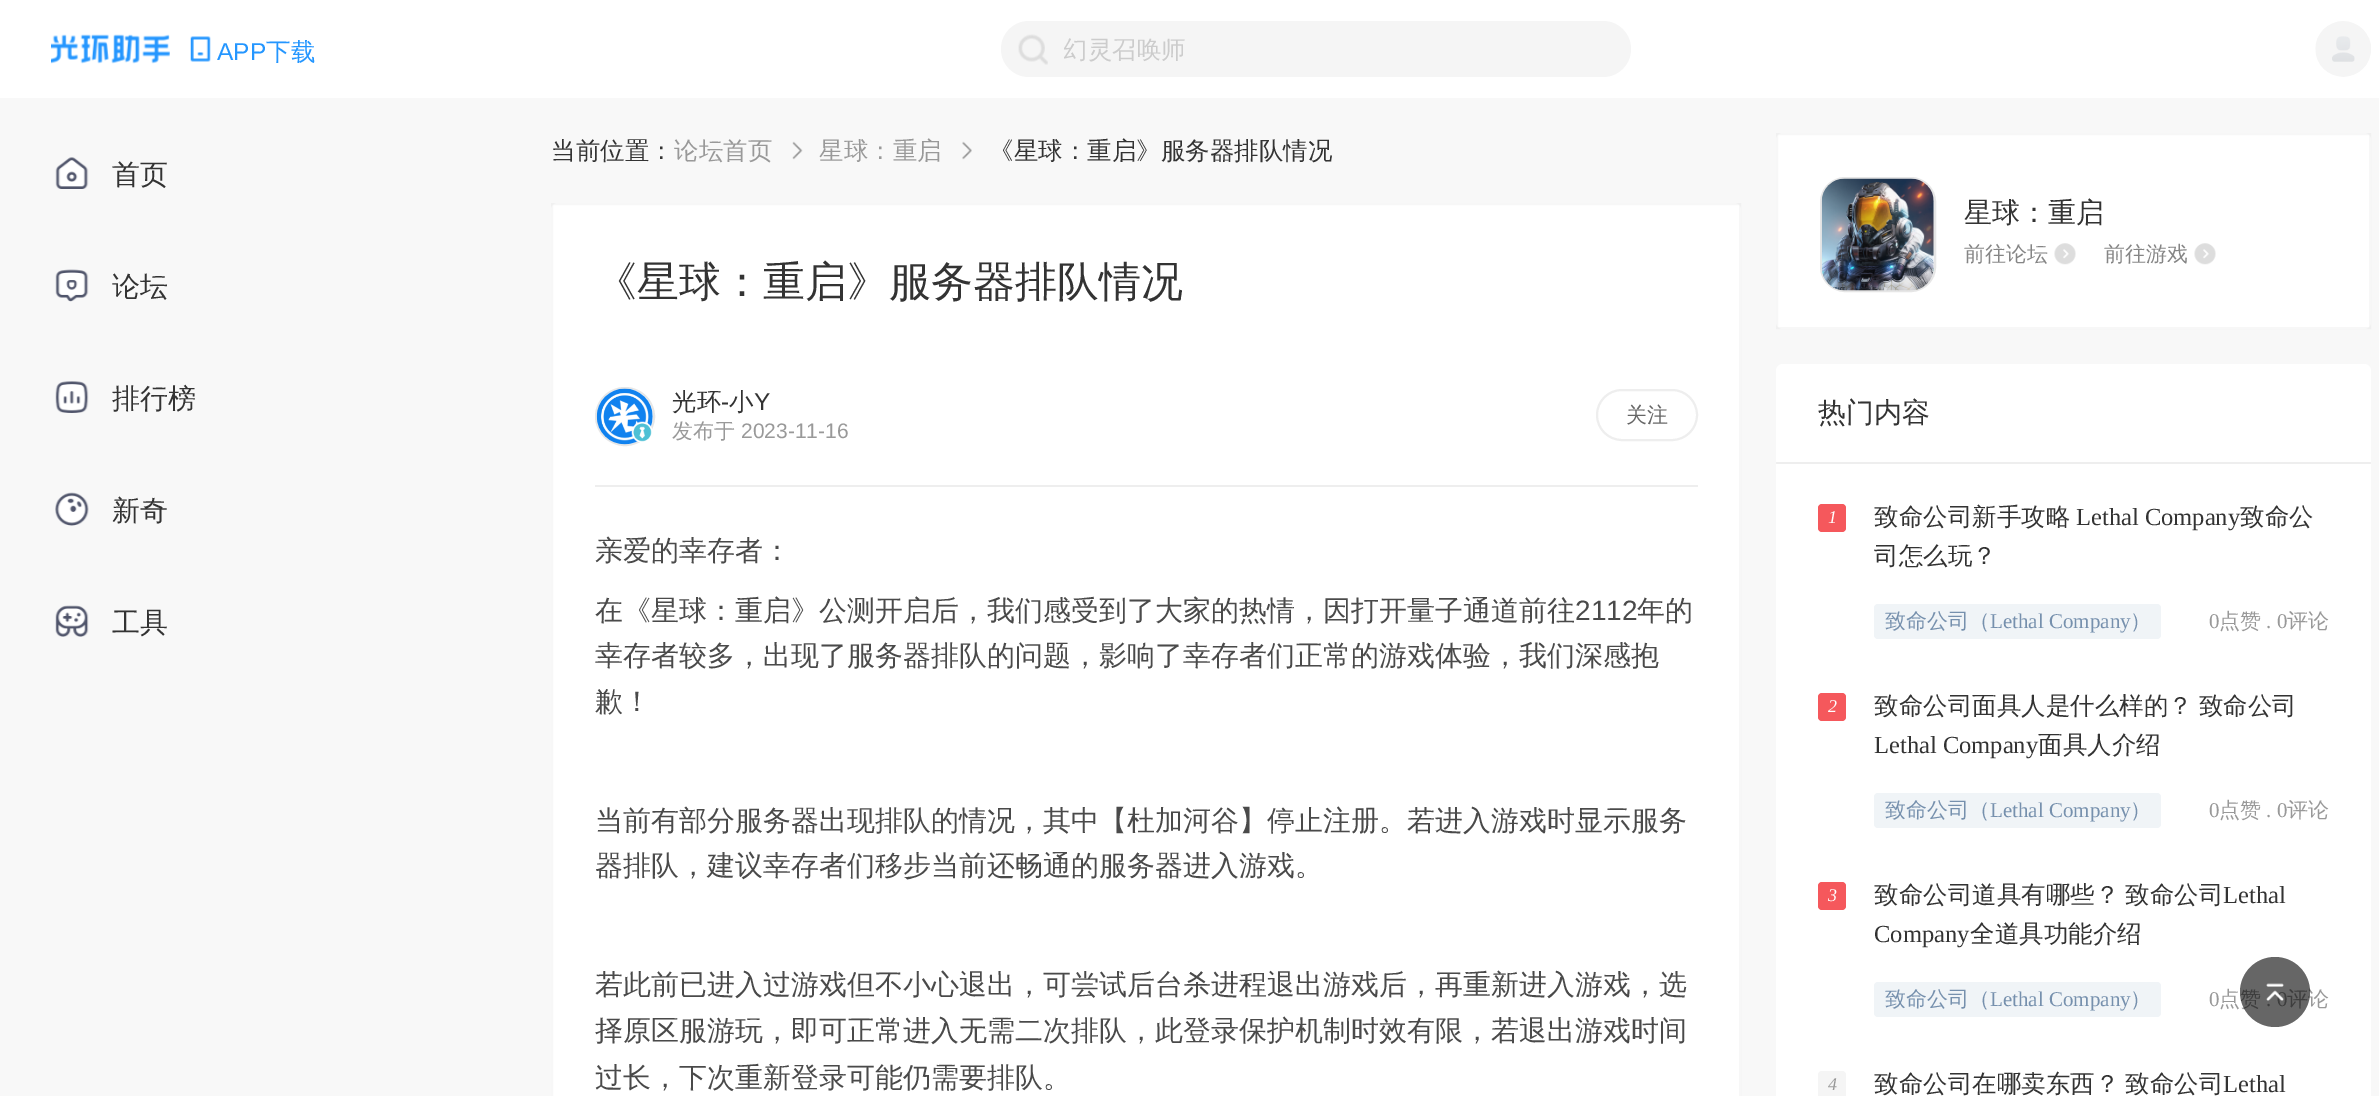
%!PS-Adobe-3.0
%%BoundingBox: 0 0 2379 1096
%%LanguageLevel: 3
%%Pages: 1
%%EndComments
%%BeginProlog
/setink { 3 { 255 div 3 1 roll } repeat setrgbcolor } def
/usefont { [ exch dup neg 0 0 3 -1 roll 0 0 ] selectfont } def
/drawtext { setink usefont moveto show } def
/fillbox { setink rectfill } def
/setalpha { dup .setfillconstantalpha .setstrokeconstantalpha } def
/disc { newpath 0 360 arc closepath } def
/rrect { 5 dict begin { /r /h /w /y /x } { exch def } forall
  x r add y moveto x w add y 2 copy h add r arct x w add y h add x 1 index r arct
  x y h add x y r arct x y 2 copy exch w add exch r arct closepath end } def
/drawimage { 5 dict begin { /h /w /y /x /name } { exch def } forall
  gsave x y translate w h scale
  w h 8 [w 0 0 h 0 0] name (r) file false 3 colorimage grestore end } def
%%EndProlog
%%BeginSetup
<< /PageSize [2379 1096] /PageUsesTransparency true >> setpagedevice
%%EndSetup
%%Page: 1 1
0 .pushpdf14devicefilter
0 1096 translate 1 -1 scale
4 setmiterlimit
0 0 2379 1096 248 248 248 fillbox
0 0 2379 98 255 255 255 fillbox
(assets/img1.rgb) 51 34 119 30 drawimage
(assets/img2.rgb) 190 36 21 26 drawimage
(APP) 217 60 /LiberationSans-Regular 24.5 36 150 255 drawtext
(下载) 266 60 /WenQuanYiZenHei-Medium 24.5 36 150 255 drawtext
245 245 245 setink
1001 21 630 56 28 rrect fill
(assets/img3.rgb) 1018 34 30 31 drawimage
gsave
1064 35 441 32 rectclip
(幻灵召唤师) 1063 58 /WenQuanYiZenHei-Medium 24.5 204 204 204 drawtext
grestore
(assets/img4.rgb) 2315 21 56 56 drawimage
(assets/img5.rgb) 55 157 34 32 drawimage
(首页) 112 184 /WenQuanYiZenHei-Medium 28 51 51 51 drawtext
(assets/img6.rgb) 55 269 34 33 drawimage
(论坛) 112 296 /WenQuanYiZenHei-Medium 28 51 51 51 drawtext
(assets/img7.rgb) 55 381 34 32 drawimage
(排行榜) 112 408 /WenQuanYiZenHei-Medium 28 51 51 51 drawtext
(assets/img8.rgb) 55 492 34 34 drawimage
(新奇) 112 520 /WenQuanYiZenHei-Medium 28 51 51 51 drawtext
(assets/img9.rgb) 55 605 34 32 drawimage
(工具) 112 632 /WenQuanYiZenHei-Medium 28 51 51 51 drawtext
(当前位置：) 551 159 /WenQuanYiZenHei-Medium 24.5 51 51 51 drawtext
(论坛首页) 674 159 /WenQuanYiZenHei-Medium 24.5 153 153 153 drawtext
(assets/img10.rgb) 792 141 11 19 drawimage
(星球：重启) 819 159 /WenQuanYiZenHei-Medium 24.5 153 153 153 drawtext
(assets/img11.rgb) 962 141 10 19 drawimage
(《星球：重启》服务器排队情况) 989 159 /WenQuanYiZenHei-Medium 24.5 51 51 51 drawtext
255 255 255 setink
551 203 1190 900 7 rrect fill
0.03 setalpha
0 0 0 setink
2 setlinewidth
552 204 1188 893 rectstroke
1 setalpha
(《星球：重启》服务器排队情况) 595 296 /WenQuanYiZenHei-Medium 42 51 51 51 drawtext
230 230 230 setink
596 388 58 57 28.5 rrect stroke
(assets/img12.rgb) 596 388 57 57 drawimage
(assets/img13.rgb) 631 421 21 21 drawimage
(光环) 672 410 /WenQuanYiZenHei-Medium 24.5 51 51 51 drawtext
(-) 721 410 /LiberationSans-Regular 24.5 51 51 51 drawtext
(小) 729 410 /WenQuanYiZenHei-Medium 24.5 51 51 51 drawtext
(Y) 754 410 /LiberationSans-Regular 24.5 51 51 51 drawtext
(发布于) 672 438 /WenQuanYiZenHei-Medium 21 153 153 153 drawtext
(2023-11-16) 741 438 /LiberationSans-Regular 21 153 153 153 drawtext
238 238 238 setink
1597 390 100 50 25 rrect stroke
(关注) 1626 422 /WenQuanYiZenHei-Medium 21 102 102 102 drawtext
595 485 1103 2 238 238 238 fillbox
(亲爱的幸存者：) 595 560 /WenQuanYiZenHei-Medium 28 74 74 74 drawtext
(在《星球：重启》公测开启后，我们感受到了大家的热情，因打开量子通道前往) 595 620 /WenQuanYiZenHei-Medium 28 74 74 74 drawtext
(2112) 1575 620 /LiberationSans-Regular 28 74 74 74 drawtext
(年的) 1637 620 /WenQuanYiZenHei-Medium 28 74 74 74 drawtext
(幸存者较多，出现了服务器排队的问题，影响了幸存者们正常的游戏体验，我们深感抱) 595 665 /WenQuanYiZenHei-Medium 28 74 74 74 drawtext
(歉！) 595 711 /WenQuanYiZenHei-Medium 28 74 74 74 drawtext
(当前有部分服务器出现排队的情况，其中【杜加河谷】停止注册。若进入游戏时显示服务) 595 830 /WenQuanYiZenHei-Medium 28 74 74 74 drawtext
(器排队，建议幸存者们移步当前还畅通的服务器进入游戏。) 595 875 /WenQuanYiZenHei-Medium 28 74 74 74 drawtext
(若此前已进入过游戏但不小心退出，可尝试后台杀进程退出游戏后，再重新进入游戏，选) 595 994 /WenQuanYiZenHei-Medium 28 74 74 74 drawtext
(择原区服游玩，即可正常进入无需二次排队，此登录保护机制时效有限，若退出游戏时间) 595 1040 /WenQuanYiZenHei-Medium 28 74 74 74 drawtext
(过长，下次重新登录可能仍需要排队。) 595 1087 /WenQuanYiZenHei-Medium 28 74 74 74 drawtext
255 255 255 setink
1776 133 595 196 7 rrect fill
0.03 setalpha
0 0 0 setink
1777 134 593 194 rectstroke
1 setalpha
230 230 230 setink
1821 178 114 113 24 rrect stroke
(assets/img14.rgb) 1821 178 113 113 drawimage
(星球：重启) 1964 222 /WenQuanYiZenHei-Medium 28 51 51 51 drawtext
(前往论坛) 1964 261 /WenQuanYiZenHei-Medium 21 133 133 133 drawtext
(assets/img15.rgb) 2054 243 22 22 drawimage
(前往游戏) 2104 261 /WenQuanYiZenHei-Medium 21 133 133 133 drawtext
(assets/img16.rgb) 2194 243 22 22 drawimage
255 255 255 setink
1776 364 595 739 7 rrect fill
(热门内容) 1818 422 /WenQuanYiZenHei-Medium 28 51 51 51 drawtext
238 238 238 setink
1776 462 595 2 1 rrect fill
245 88 92 setink
1818 504 28 28 4 rrect fill
(1) 1828 523 /LiberationSerif-Italic 18 255 255 255 drawtext
(致命公司新手攻略) 1874 525 /WenQuanYiZenHei-Medium 24.5 51 51 51 drawtext
(Lethal Company) 2076 525 /LiberationSerif-Regular 24.5 51 51 51 drawtext
(致命公) 2240 525 /WenQuanYiZenHei-Medium 24.5 51 51 51 drawtext
(司怎么玩？) 1874 564 /WenQuanYiZenHei-Medium 24.5 51 51 51 drawtext
240 244 247 setink
1874 604 287 35 4 rrect fill
(致命公司（) 1885 628 /WenQuanYiZenHei-Medium 21 118 144 173 drawtext
(Lethal Company) 1990 628 /LiberationSerif-Regular 21 118 144 173 drawtext
(）) 2130 628 /WenQuanYiZenHei-Medium 21 118 144 173 drawtext
(0) 2209 628 /LiberationSerif-Regular 21 153 153 153 drawtext
(点赞) 2219 628 /WenQuanYiZenHei-Medium 21 153 153 153 drawtext
(. 0) 2266 628 /LiberationSerif-Regular 21 153 153 153 drawtext
(评论) 2287 628 /WenQuanYiZenHei-Medium 21 153 153 153 drawtext
245 88 92 setink
1818 693 28 28 4 rrect fill
(2) 1828 712 /LiberationSerif-Italic 18 255 255 255 drawtext
/WenQuanYiZenHei-Medium 24.5 usefont
51 51 51 setink
1874 714 moveto -1 0 32 (致命公司面具人是什么样的？ 致命公司) widthshow
(Lethal Company) 1874 753 /LiberationSerif-Regular 24.5 51 51 51 drawtext
(面具人介绍) 2038 753 /WenQuanYiZenHei-Medium 24.5 51 51 51 drawtext
240 244 247 setink
1874 793 287 35 4 rrect fill
(致命公司（) 1885 817 /WenQuanYiZenHei-Medium 21 118 144 173 drawtext
(Lethal Company) 1990 817 /LiberationSerif-Regular 21 118 144 173 drawtext
(）) 2130 817 /WenQuanYiZenHei-Medium 21 118 144 173 drawtext
(0) 2209 817 /LiberationSerif-Regular 21 153 153 153 drawtext
(点赞) 2219 817 /WenQuanYiZenHei-Medium 21 153 153 153 drawtext
(. 0) 2266 817 /LiberationSerif-Regular 21 153 153 153 drawtext
(评论) 2287 817 /WenQuanYiZenHei-Medium 21 153 153 153 drawtext
245 88 92 setink
1818 882 28 28 4 rrect fill
(3) 1828 901 /LiberationSerif-Italic 18 255 255 255 drawtext
/WenQuanYiZenHei-Medium 24.5 usefont
51 51 51 setink
1874 903 moveto -1 0 32 (致命公司道具有哪些？ 致命公司) widthshow
(Lethal) 2223 903 /LiberationSerif-Regular 24.5 51 51 51 drawtext
(Company) 1874 942 /LiberationSerif-Regular 24.5 51 51 51 drawtext
(全道具功能介绍) 1970 942 /WenQuanYiZenHei-Medium 24.5 51 51 51 drawtext
240 244 247 setink
1874 982 287 35 4 rrect fill
(致命公司（) 1885 1006 /WenQuanYiZenHei-Medium 21 118 144 173 drawtext
(Lethal Company) 1990 1006 /LiberationSerif-Regular 21 118 144 173 drawtext
(）) 2130 1006 /WenQuanYiZenHei-Medium 21 118 144 173 drawtext
(0) 2209 1006 /LiberationSerif-Regular 21 153 153 153 drawtext
(点赞) 2219 1006 /WenQuanYiZenHei-Medium 21 153 153 153 drawtext
(. 0) 2266 1006 /LiberationSerif-Regular 21 153 153 153 drawtext
(评论) 2287 1006 /WenQuanYiZenHei-Medium 21 153 153 153 drawtext
245 245 245 setink
1818 1071 28 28 4 rrect fill
(4) 1828 1090 /LiberationSerif-Italic 18 153 153 153 drawtext
/WenQuanYiZenHei-Medium 24.5 usefont
51 51 51 setink
1874 1092 moveto -1 0 32 (致命公司在哪卖东西？ 致命公司) widthshow
(Lethal) 2223 1092 /LiberationSerif-Regular 24.5 51 51 51 drawtext
0.6 setalpha
0 0 0 setink
2275 992 35 disc fill
1 setalpha
(assets/img17.rgb) 2266 983 18 18 drawimage
.poppdf14devicefilter showpage
%%EOF
